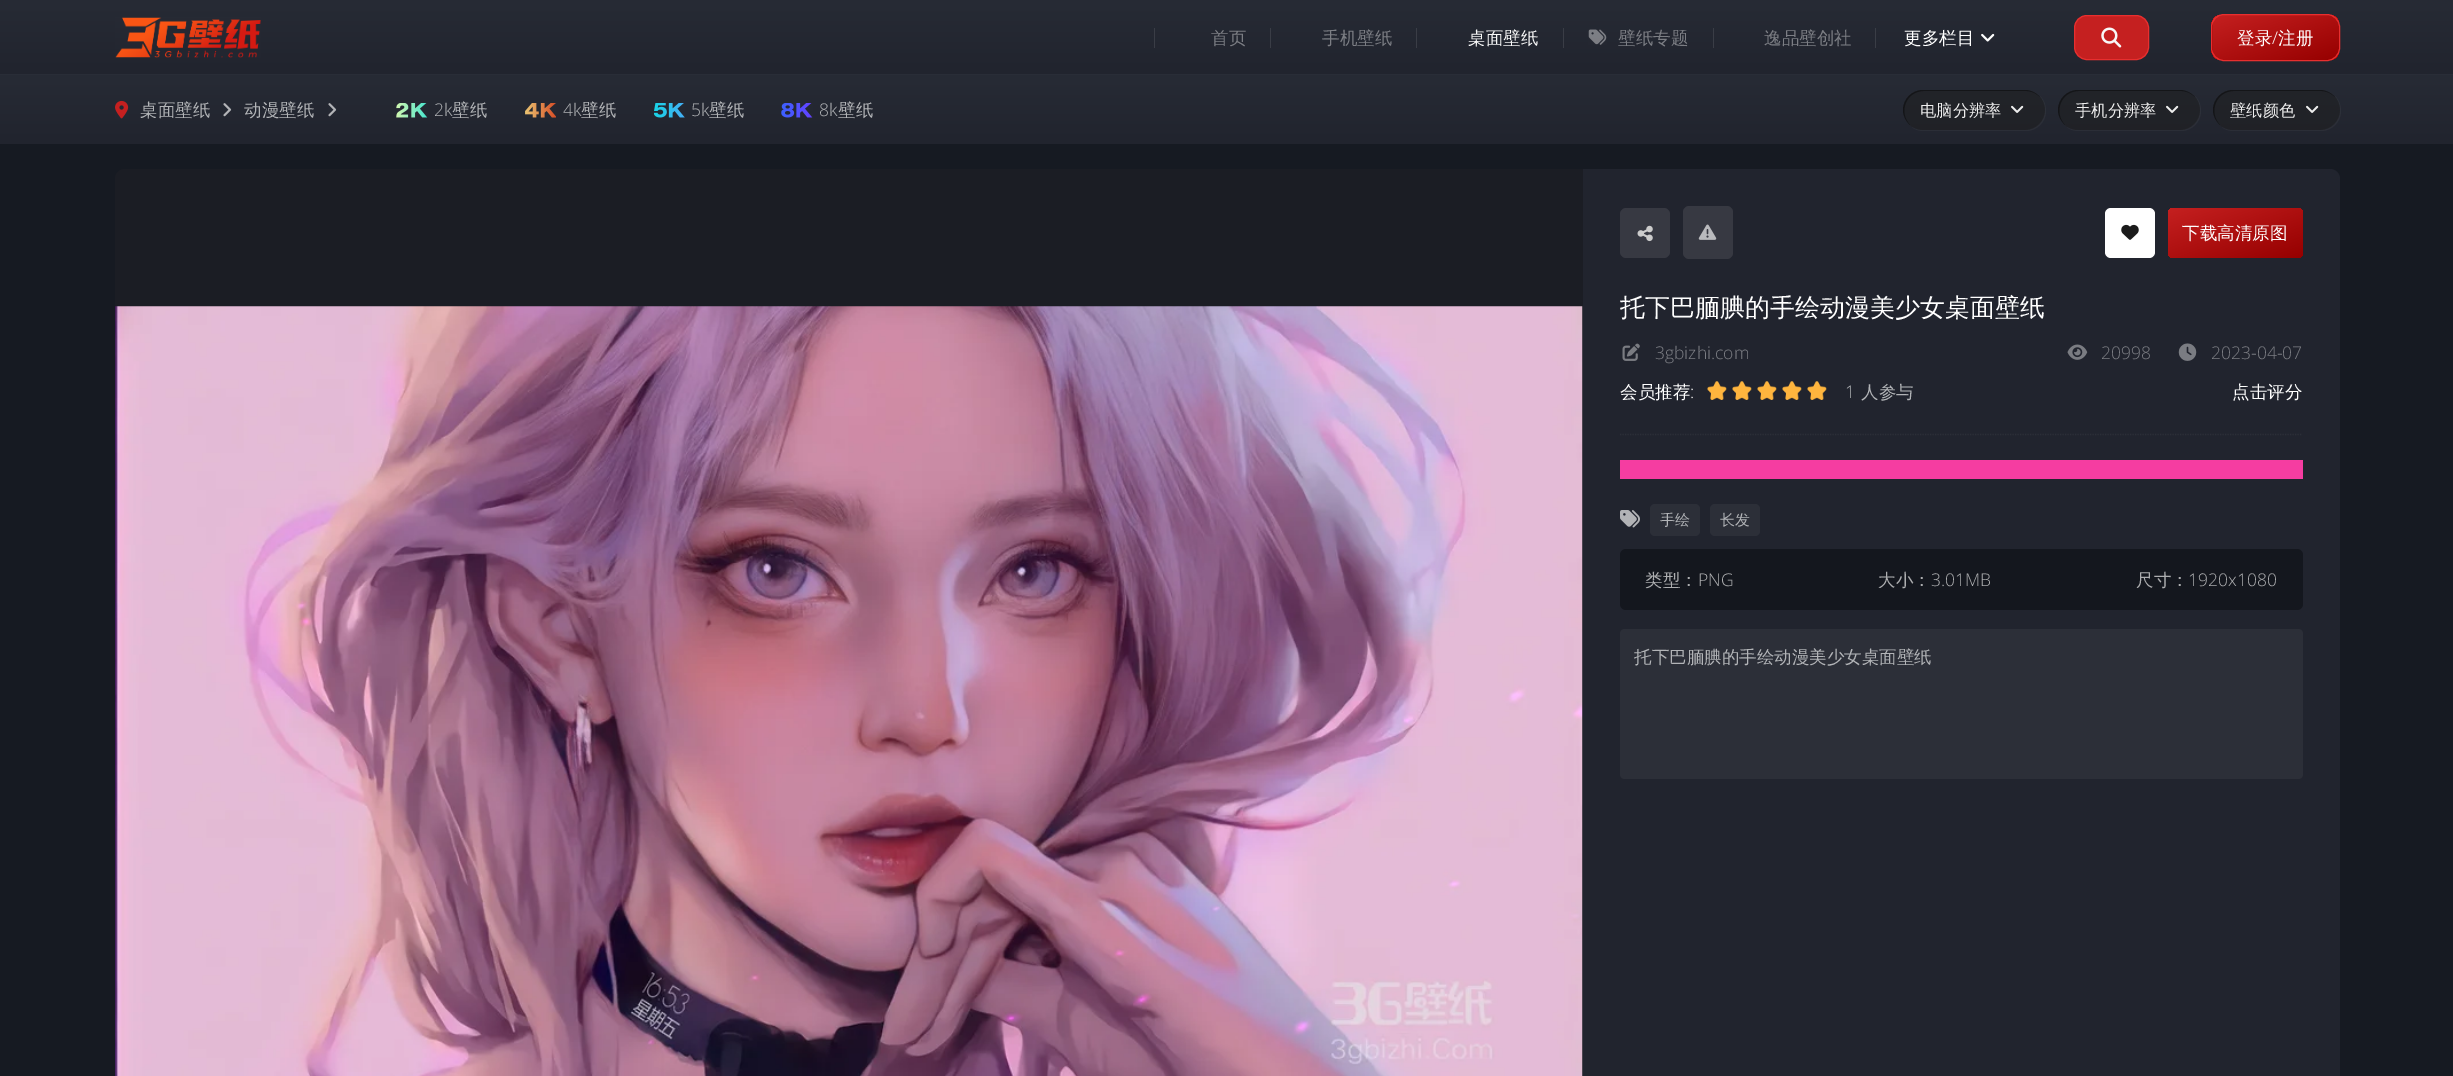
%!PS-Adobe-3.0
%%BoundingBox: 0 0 2453 1076
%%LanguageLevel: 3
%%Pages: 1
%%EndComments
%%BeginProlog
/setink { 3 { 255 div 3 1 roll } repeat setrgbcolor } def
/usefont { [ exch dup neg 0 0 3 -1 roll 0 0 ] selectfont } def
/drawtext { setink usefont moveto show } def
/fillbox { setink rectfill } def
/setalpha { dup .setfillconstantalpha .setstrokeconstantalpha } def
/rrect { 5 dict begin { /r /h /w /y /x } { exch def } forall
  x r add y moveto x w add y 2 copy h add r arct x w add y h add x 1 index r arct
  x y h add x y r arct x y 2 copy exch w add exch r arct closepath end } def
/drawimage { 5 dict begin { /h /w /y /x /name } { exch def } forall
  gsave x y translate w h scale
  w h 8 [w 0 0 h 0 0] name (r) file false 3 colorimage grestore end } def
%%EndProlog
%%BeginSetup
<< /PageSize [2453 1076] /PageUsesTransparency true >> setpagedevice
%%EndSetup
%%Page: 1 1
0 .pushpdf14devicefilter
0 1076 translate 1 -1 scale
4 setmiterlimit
0 0 2453 1076 22 26 34 fillbox
gsave 0 0 moveto 2453 0 lineto 2453 74 lineto 0 74 lineto closepath clip newpath
<< /ShadingType 2 /ColorSpace /DeviceRGB /Coords [1227 -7.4 1227 74] /Extend [true true] /Function << /FunctionType 2 /Domain [0 1] /C0 [0.157 0.173 0.212] /C1 [0.129 0.141 0.18] /N 1 >> >> shfill grestore
0 74 2453 1 41 45 55 fillbox
(assets/img1.rgb) 115 17 146 41 drawimage
1154 28 1 20 58 61 70 fillbox
(首页) 1211 44 /WenQuanYiZenHei-Medium 17.5 124 126 132 drawtext
1270 28 1 20 58 61 70 fillbox
(手机壁纸) 1322 44 /WenQuanYiZenHei-Medium 17.5 124 126 132 drawtext
1416 28 1 20 58 61 70 fillbox
(桌面壁纸) 1468 44 /WenQuanYiZenHei-Medium 17.5 248 248 248 drawtext
1563 28 1 20 58 61 70 fillbox
(assets/img2.rgb) 1588 29 19 16 drawimage
(壁纸专题) 1618 44 /WenQuanYiZenHei-Medium 17.5 124 126 132 drawtext
1713 28 1 20 58 61 70 fillbox
(逸品壁创社) 1764 44 /WenQuanYiZenHei-Medium 17.5 124 126 132 drawtext
1875 28 1 20 58 61 70 fillbox
(更多栏目) 1904 44 /WenQuanYiZenHei-Medium 17.5 255 255 255 drawtext
(assets/img3.rgb) 1981 33 14 9 drawimage
197 32 32 setink
2074.5 15.5 74 44 12.5 rrect gsave fill grestore
232 47 47 setink
stroke
(assets/img4.rgb) 2101 27 21 21 drawimage
gsave
2211 14 129 47 13 rrect clip newpath
gsave 2211 15 moveto 2213 15 lineto 2213 60 lineto 2211 60 lineto closepath clip newpath
<< /ShadingType 2 /ColorSpace /DeviceRGB /Coords [2164 78 2135 -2.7] /Extend [true true] /Function << /FunctionType 2 /Domain [0 1] /C0 [0.588 0 0] /C1 [0.773 0.125 0.125] /N 1 >> >> shfill grestore
gsave 2213 15 moveto 2339 15 lineto 2339 60 lineto 2213 60 lineto closepath clip newpath
<< /ShadingType 2 /ColorSpace /DeviceRGB /Coords [2290 78 2261 -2.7] /Extend [true true] /Function << /FunctionType 2 /Domain [0 1] /C0 [0.588 0 0] /C1 [0.773 0.125 0.125] /N 1 >> >> shfill grestore
grestore
2211.5 14.5 128 46 12.5 rrect stroke
(登录) 2237 44 /WenQuanYiZenHei-Medium 17.5 255 255 255 drawtext
(/) 2272 44 /OpenSans-Light 17.5 255 255 255 drawtext
(注册) 2278 44 /WenQuanYiZenHei-Medium 17.5 255 255 255 drawtext
gsave 0 75 moveto 2453 75 lineto 2453 144 lineto 0 144 lineto closepath clip newpath
<< /ShadingType 2 /ColorSpace /DeviceRGB /Coords [1227 68 1227 144] /Extend [true true] /Function << /FunctionType 2 /Domain [0 1] /C0 [0.157 0.173 0.212] /C1 [0.129 0.141 0.18] /N 1 >> >> shfill grestore
(assets/img5.rgb) 115 100 14 19 drawimage
(桌面壁纸) 140 116 /WenQuanYiZenHei-Medium 17.5 178 180 183 drawtext
(assets/img6.rgb) 223 103 9 14 drawimage
(动漫壁纸) 244 116 /WenQuanYiZenHei-Medium 17.5 178 180 183 drawtext
(assets/img6.rgb) 328 103 9 14 drawimage
(assets/img7.rgb) 396 103 32 15 drawimage
(2k) 434 116 /OpenSans-Light 17.5 178 180 183 drawtext
(壁纸) 452 116 /WenQuanYiZenHei-Medium 17.5 178 180 183 drawtext
(assets/img8.rgb) 525 103 31 15 drawimage
(4k) 563 116 /OpenSans-Light 17.5 178 180 183 drawtext
(壁纸) 581 116 /WenQuanYiZenHei-Medium 17.5 178 180 183 drawtext
(assets/img9.rgb) 654 103 31 15 drawimage
(5k) 691 116 /OpenSans-Light 17.5 178 180 183 drawtext
(壁纸) 709 116 /WenQuanYiZenHei-Medium 17.5 178 180 183 drawtext
(assets/img10.rgb) 781 103 32 15 drawimage
(8k) 819 116 /OpenSans-Light 17.5 178 180 183 drawtext
(壁纸) 838 116 /WenQuanYiZenHei-Medium 17.5 178 180 183 drawtext
0.1 setalpha
127 127 127 setink
1912 127 moveto 1915 130 1920 131 1924 131 curveto 2026 131 lineto 2037 131 2046 122 2046 111 curveto 2046 105 2044 100 2040 96 curveto 2043 100 2045 105 2045 110 curveto 2045 121 2036 130 2025 130 curveto 1922 130 lineto 1919 130 1915 129 1912 127 curveto closepath fill
0.5 setalpha
30 30 30 setink
1903 90 142 40 20 rrect fill
0.4 setalpha
0 0 0 setink
1924 91 moveto 2026 91 lineto 2031 91 2036 93 2040 97 curveto 2036 93 2031 90 2025 90 curveto 1923 90 lineto 1912 90 1903 99 1903 110 curveto 1903 116 1906 121 1910 125 curveto 1898 112 1906 91 1924 91 curveto closepath fill
1 setalpha
(电脑分辨率) 1920 116 /WenQuanYiZenHei-Medium 16.25 238 238 238 drawtext
(assets/img11.rgb) 2011 105 13 8 drawimage
0.1 setalpha
127 127 127 setink
2067 127 moveto 2070 130 2075 131 2079 131 curveto 2181 131 lineto 2192 131 2201 122 2201 111 curveto 2201 105 2199 100 2195 96 curveto 2198 100 2200 105 2200 110 curveto 2200 121 2191 130 2180 130 curveto 2078 130 lineto 2074 130 2070 129 2067 127 curveto closepath fill
0.5 setalpha
30 30 30 setink
2058 90 142 40 20 rrect fill
0.4 setalpha
0 0 0 setink
2079 91 moveto 2181 91 lineto 2186 91 2191 93 2195 97 curveto 2191 93 2186 90 2180 90 curveto 2078 90 lineto 2067 90 2058 99 2058 110 curveto 2058 116 2061 121 2065 125 curveto 2053 112 2061 91 2079 91 curveto closepath fill
1 setalpha
(手机分辨率) 2075 116 /WenQuanYiZenHei-Medium 16.25 238 238 238 drawtext
(assets/img11.rgb) 2166 105 13 8 drawimage
0.1 setalpha
127 127 127 setink
2222 127 moveto 2225 130 2230 131 2234 131 curveto 2321 131 lineto 2332 131 2341 122 2341 111 curveto 2341 105 2339 100 2335 96 curveto 2338 100 2340 105 2340 110 curveto 2340 121 2331 130 2320 130 curveto 2232 130 lineto 2229 130 2225 129 2222 127 curveto closepath fill
0.5 setalpha
30 30 30 setink
2213 90 127 40 20 rrect fill
0.4 setalpha
0 0 0 setink
2234 91 moveto 2321 91 lineto 2326 91 2331 93 2335 97 curveto 2331 93 2326 90 2320 90 curveto 2233 90 lineto 2222 90 2213 99 2213 110 curveto 2213 116 2216 121 2220 125 curveto 2208 112 2216 91 2234 91 curveto closepath fill
1 setalpha
(壁纸颜色) 2230 116 /WenQuanYiZenHei-Medium 16.25 238 238 238 drawtext
(assets/img11.rgb) 2306 105 13 8 drawimage
27 29 36 setink
125 169 moveto 1583 169 lineto 1583 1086 lineto 125 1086 lineto 119.5 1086 115 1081.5 115 1076 curveto 115 179 lineto 115 173.5 119.5 169 125 169 curveto closepath fill
(assets/img12.rgb) 115 306 1468 770 drawimage
33 36 46 setink
1583 169 moveto 2330 169 lineto 2335.5 169 2340 173.5 2340 179 curveto 2340 1076 lineto 2340 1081.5 2335.5 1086 2330 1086 curveto 1583 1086 lineto closepath fill
55 57 66 setink
1626 208 moveto 1664 208 lineto 1667 208 1670 211 1670 214 curveto 1670 252 lineto 1670 255 1667 258 1664 258 curveto 1626 258 lineto 1623 258 1620 255 1620 252 curveto 1620 214 lineto 1620 211 1623 208 1626 208 curveto closepath fill
(assets/img13.rgb) 1637 225 16 17 drawimage
1689 206 moveto 1727 206 lineto 1730 206 1733 209 1733 212 curveto 1733 253 lineto 1733 256 1730 259 1727 259 curveto 1689 259 lineto 1686 259 1683 256 1683 253 curveto 1683 212 lineto 1683 209 1686 206 1689 206 curveto closepath fill
(assets/img14.rgb) 1698 224 19 16 drawimage
255 255 255 setink
2105 208 50 50 6 rrect fill
(assets/img15.rgb) 2121 224 18 16 drawimage
gsave 2168 208 135 50 6 rrect clip newpath
<< /ShadingType 2 /ColorSpace /DeviceRGB /Coords [2251 276 2219 189] /Extend [true true] /Function << /FunctionType 2 /Domain [0 1] /C0 [0.588 0 0] /C1 [0.773 0.125 0.125] /N 1 >> >> shfill grestore
(下载高清原图) 2182 239 /WenQuanYiZenHei-Medium 17.5 255 255 255 drawtext
44 47 56 setink
1.2 setlinewidth
[1.25 1.25] 0 setdash
1620 434.5 moveto 2302.5 434.5 lineto stroke
(托下巴腼腆的手绘动漫美少女桌面壁纸) 1620 316 /WenQuanYiZenHei-Medium 25 255 255 255 drawtext
(assets/img16.rgb) 1622 343 18 18 drawimage
(3gbizhi.com) 1655 359 /OpenSans-Light 17.5 124 126 132 drawtext
(assets/img17.rgb) 2067 344 21 16 drawimage
(20998) 2101 359 /OpenSans-Light 17.5 124 126 132 drawtext
(assets/img18.rgb) 2178 343 19 18 drawimage
(2023-04-07) 2211 359 /OpenSans-Light 17.5 124 126 132 drawtext
(会员推荐) 1620 398 /WenQuanYiZenHei-Medium 17.5 255 255 255 drawtext
(:) 1690 398 /OpenSans-Light 17.5 255 255 255 drawtext
(assets/img19.rgb) 1707 381 20 19 drawimage
(assets/img19.rgb) 1732 381 20 19 drawimage
(assets/img19.rgb) 1757 381 20 19 drawimage
(assets/img19.rgb) 1782 381 20 19 drawimage
(assets/img19.rgb) 1807 381 20 19 drawimage
(1) 1845 398 /OpenSans-Light 17.5 178 180 183 drawtext
(人参与) 1861 398 /WenQuanYiZenHei-Medium 17.5 178 180 183 drawtext
(点击评分) 2232 398 /WenQuanYiZenHei-Medium 17.5 255 255 255 drawtext
1620 460 683 19 245 61 161 fillbox
(assets/img20.rgb) 1620 510 20 18 drawimage
44 47 56 setink
1650 504 50 32 5 rrect fill
(手绘) 1660 525 /WenQuanYiZenHei-Medium 15 178 180 183 drawtext
44 47 56 setink
1710 504 50 32 5 rrect fill
(长发) 1720 525 /WenQuanYiZenHei-Medium 15 178 180 183 drawtext
20 23 30 setink
1620 549 683 61 6 rrect fill
(类型：) 1645 586 /WenQuanYiZenHei-Medium 17.5 173 174 176 drawtext
(PNG) 1698 586 /OpenSans-Light 17.5 173 174 176 drawtext
(大小：) 1878 586 /WenQuanYiZenHei-Medium 17.5 173 174 176 drawtext
(3.01MB) 1931 586 /OpenSans-Light 17.5 173 174 176 drawtext
(尺寸：) 2136 586 /WenQuanYiZenHei-Medium 17.5 173 174 176 drawtext
(1920x1080) 2188 586 /OpenSans-Light 17.5 173 174 176 drawtext
44 47 56 setink
1625 629 moveto 2298 629 lineto 2301 629 2303 631 2303 634 curveto 2303 774 lineto 2303 777 2301 779 2298 779 curveto 1625 779 lineto 1622 779 1620 777 1620 774 curveto 1620 634 lineto 1620 631 1622 629 1625 629 curveto closepath fill
(托下巴腼腆的手绘动漫美少女桌面壁纸) 1634 663 /WenQuanYiZenHei-Medium 17.5 178 180 183 drawtext
.poppdf14devicefilter showpage
%%EOF
